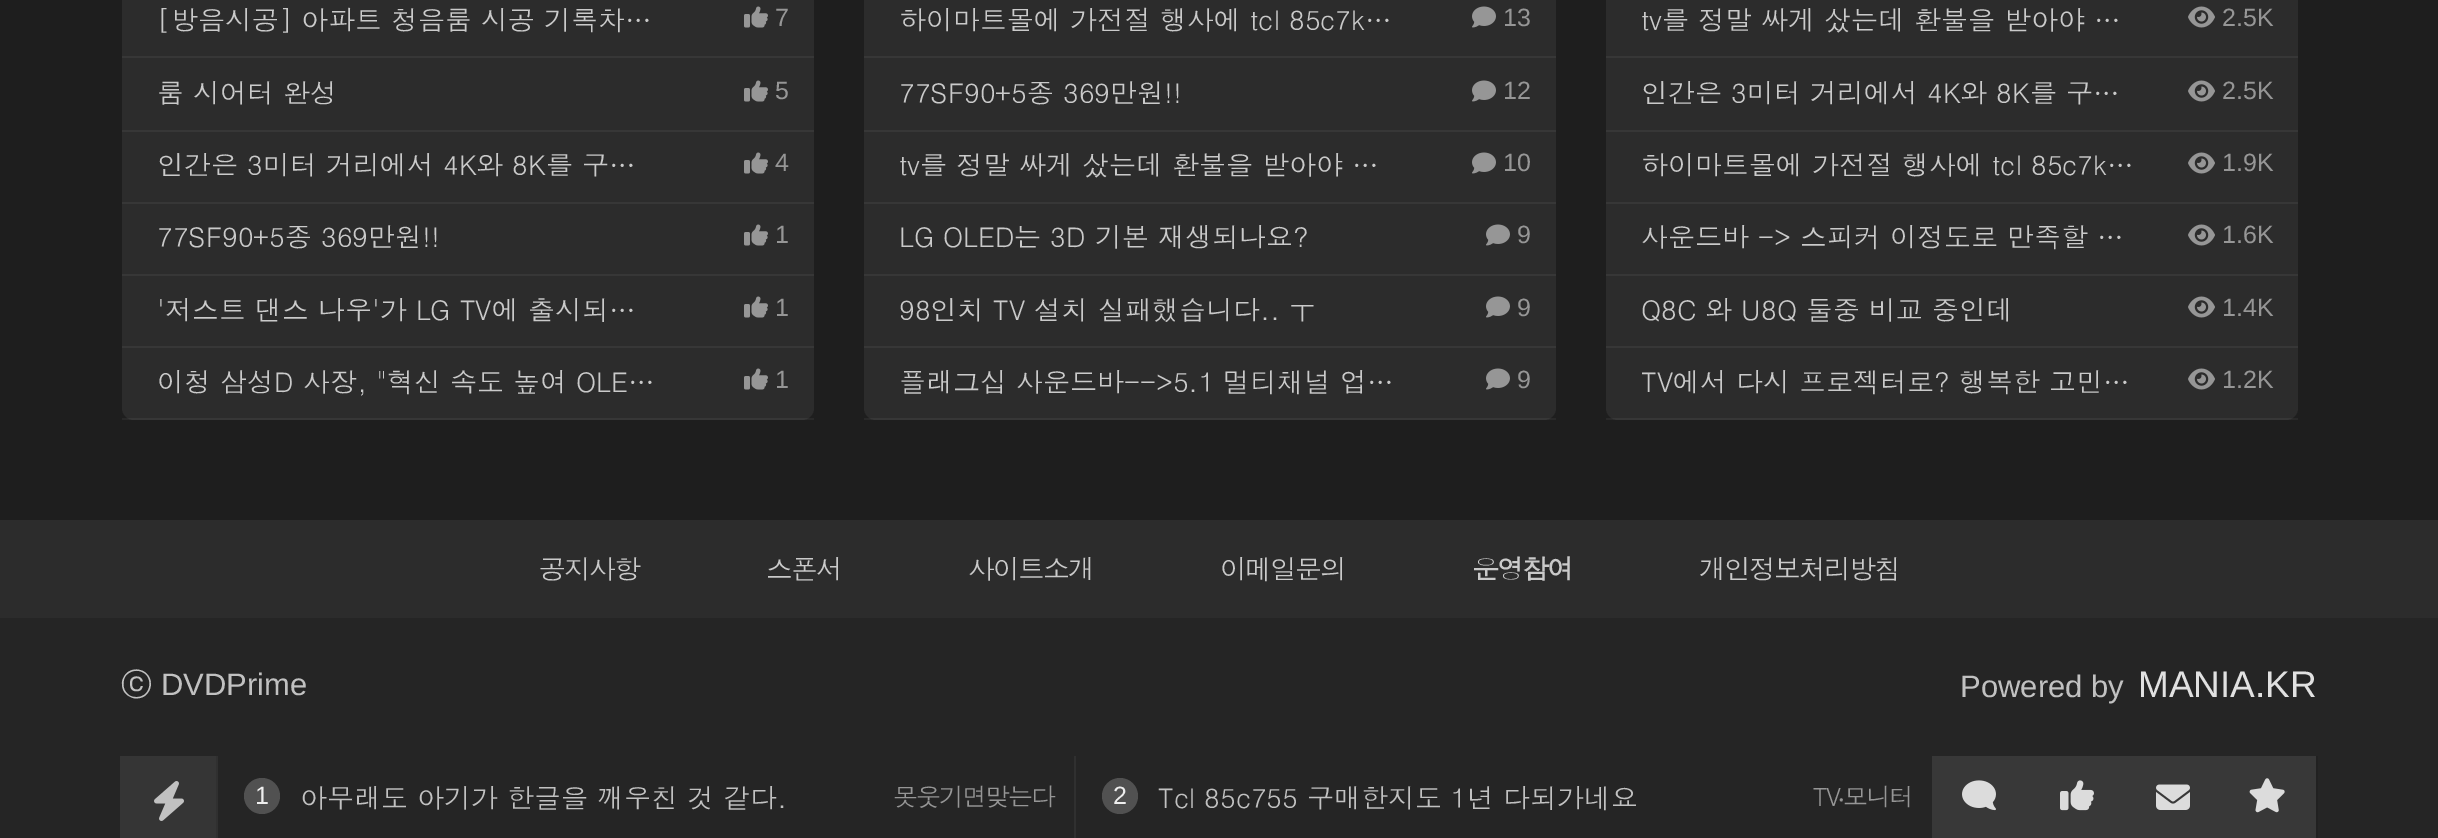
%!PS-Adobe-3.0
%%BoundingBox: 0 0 2438 838
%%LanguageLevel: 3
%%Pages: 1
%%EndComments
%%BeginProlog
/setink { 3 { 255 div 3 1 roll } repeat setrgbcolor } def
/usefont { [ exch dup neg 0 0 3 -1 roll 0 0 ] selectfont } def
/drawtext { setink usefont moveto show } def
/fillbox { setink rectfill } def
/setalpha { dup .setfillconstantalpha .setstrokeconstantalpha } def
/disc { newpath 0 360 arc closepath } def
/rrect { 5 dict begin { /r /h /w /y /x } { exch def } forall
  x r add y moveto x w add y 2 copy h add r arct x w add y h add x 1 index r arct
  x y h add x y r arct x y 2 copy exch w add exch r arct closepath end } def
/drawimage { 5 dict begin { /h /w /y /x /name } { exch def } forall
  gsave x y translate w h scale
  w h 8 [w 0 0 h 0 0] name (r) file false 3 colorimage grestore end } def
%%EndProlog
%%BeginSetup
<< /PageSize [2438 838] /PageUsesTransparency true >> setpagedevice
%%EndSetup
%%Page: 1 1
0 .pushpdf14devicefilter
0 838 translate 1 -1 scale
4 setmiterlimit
0 0 2438 838 30 30 30 fillbox
44 44 44 setink
122 -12 692 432 12 rrect fill
122 56 692 2 55 55 55 fillbox
([방음시공] 아파트 청음룸 시공 기록차…) 157 30 /Dotum-Regular 27 202 202 202 drawtext
(assets/img1.rgb) 744 6 24 22 drawimage
(7) 775 26 /LiberationSans-Regular 25 150 150 150 drawtext
122 130 692 2 55 55 55 fillbox
(룸 시어터 완성) 157 103 /Dotum-Regular 27 202 202 202 drawtext
(assets/img1.rgb) 744 80 24 22 drawimage
(5) 775 99 /LiberationSans-Regular 25 150 150 150 drawtext
122 202 692 2 55 55 55 fillbox
(인간은 3미터 거리에서 4K와 8K를 구…) 157 175 /Dotum-Regular 27 202 202 202 drawtext
(assets/img1.rgb) 744 152 24 22 drawimage
(4) 775 171 /LiberationSans-Regular 25 150 150 150 drawtext
122 274 692 2 55 55 55 fillbox
(77SF90+5종 369만원!!) 157 247 /Dotum-Regular 27 202 202 202 drawtext
(assets/img1.rgb) 744 224 24 22 drawimage
(1) 775 243 /LiberationSans-Regular 25 150 150 150 drawtext
122 346 692 2 55 55 55 fillbox
('저스트 댄스 나우'가 LG TV에 출시되…) 157 320 /Dotum-Regular 27 202 202 202 drawtext
(assets/img1.rgb) 744 296 24 22 drawimage
(1) 775 316 /LiberationSans-Regular 25 150 150 150 drawtext
0.05 setalpha
122 418 692 2 255 255 255 fillbox
1 setalpha
(이청 삼성D 사장, "혁신 속도 높여 OLE…) 157 392 /Dotum-Regular 27 202 202 202 drawtext
(assets/img1.rgb) 744 368 24 22 drawimage
(1) 775 388 /LiberationSans-Regular 25 150 150 150 drawtext
44 44 44 setink
864 -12 692 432 12 rrect fill
864 56 692 2 55 55 55 fillbox
(하이마트몰에 가전절 행사에 tcl 85c7k…) 899 30 /Dotum-Regular 27 202 202 202 drawtext
(assets/img2.rgb) 1472 6 24 22 drawimage
(13) 1503 26 /LiberationSans-Regular 25 150 150 150 drawtext
864 130 692 2 55 55 55 fillbox
(77SF90+5종 369만원!!) 899 103 /Dotum-Regular 27 202 202 202 drawtext
(assets/img2.rgb) 1472 80 24 22 drawimage
(12) 1503 99 /LiberationSans-Regular 25 150 150 150 drawtext
864 202 692 2 55 55 55 fillbox
(tv를 정말 싸게 샀는데 환불을 받아야 …) 899 175 /Dotum-Regular 27 202 202 202 drawtext
(assets/img2.rgb) 1472 152 24 22 drawimage
(10) 1503 171 /LiberationSans-Regular 25 150 150 150 drawtext
864 274 692 2 55 55 55 fillbox
(LG OLED는 3D 기본 재생되나요?) 899 247 /Dotum-Regular 27 202 202 202 drawtext
(assets/img2.rgb) 1486 224 24 22 drawimage
(9) 1517 243 /LiberationSans-Regular 25 150 150 150 drawtext
864 346 692 2 55 55 55 fillbox
(98인치 TV 설치 실패했습니다.. ㅜ) 899 320 /Dotum-Regular 27 202 202 202 drawtext
(assets/img2.rgb) 1486 296 24 22 drawimage
(9) 1517 316 /LiberationSans-Regular 25 150 150 150 drawtext
0.05 setalpha
864 418 692 2 255 255 255 fillbox
1 setalpha
(플래그십 사운드바-->5.1 멀티채널 업…) 899 392 /Dotum-Regular 27 202 202 202 drawtext
(assets/img2.rgb) 1486 368 24 22 drawimage
(9) 1517 388 /LiberationSans-Regular 25 150 150 150 drawtext
44 44 44 setink
1606 -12 692 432 12 rrect fill
1606 56 692 2 55 55 55 fillbox
(tv를 정말 싸게 샀는데 환불을 받아야 …) 1641 30 /Dotum-Regular 27 202 202 202 drawtext
(assets/img3.rgb) 2188 6 27 22 drawimage
(2.5K) 2222 26 /LiberationSans-Regular 25 150 150 150 drawtext
1606 130 692 2 55 55 55 fillbox
(인간은 3미터 거리에서 4K와 8K를 구…) 1641 103 /Dotum-Regular 27 202 202 202 drawtext
(assets/img3.rgb) 2188 80 27 22 drawimage
(2.5K) 2222 99 /LiberationSans-Regular 25 150 150 150 drawtext
1606 202 692 2 55 55 55 fillbox
(하이마트몰에 가전절 행사에 tcl 85c7k…) 1641 175 /Dotum-Regular 27 202 202 202 drawtext
(assets/img3.rgb) 2188 152 27 22 drawimage
(1.9K) 2222 171 /LiberationSans-Regular 25 150 150 150 drawtext
1606 274 692 2 55 55 55 fillbox
(사운드바 -> 스피커 이정도로 만족할 …) 1641 247 /Dotum-Regular 27 202 202 202 drawtext
(assets/img3.rgb) 2188 224 27 22 drawimage
(1.6K) 2222 243 /LiberationSans-Regular 25 150 150 150 drawtext
1606 346 692 2 55 55 55 fillbox
(Q8C 와 U8Q 둘중 비교 중인데) 1641 320 /Dotum-Regular 27 202 202 202 drawtext
(assets/img3.rgb) 2188 296 27 22 drawimage
(1.4K) 2222 316 /LiberationSans-Regular 25 150 150 150 drawtext
0.05 setalpha
1606 418 692 2 255 255 255 fillbox
gsave
1642 360 500 44 rectclip
1 setalpha
(TV에서 다시 프로젝터로? 행복한 고민…) 1641 392 /Dotum-Regular 27 202 202 202 drawtext
grestore
1 setalpha
(assets/img3.rgb) 2188 368 27 22 drawimage
(1.2K) 2222 388 /LiberationSans-Regular 25 150 150 150 drawtext
0 520 2438 98 44 44 44 fillbox
/Dotum-Regular 27 usefont
202 202 202 setink
539 579 moveto -2 0 (공지사항) ashow
766 579 moveto -2 0 (스폰서) ashow
968 579 moveto -2 0 (사이트소개) ashow
1220 579 moveto -2 0 (이메일문의) ashow
/Dotum-Bold 27 usefont
1472 579 moveto -2 0 (운영참여) ashow
/Dotum-Regular 27 usefont
1699 579 moveto -2 0 (개인정보처리방침) ashow
0 618 2438 220 37 37 37 fillbox
(ⓒ) 121 695 /WenQuanYiZenHei-Medium 31 193 193 193 drawtext
(DVDPrime) 161 695 /LiberationSans-Regular 31 193 193 193 drawtext
(Powered by) 1960 697 /LiberationSans-Regular 31 193 193 193 drawtext
(MANIA.KR) 2138 697 /LiberationSans-Regular 37 225 225 225 drawtext
2316 756 2 82 33 33 33 fillbox
120 756 96 82 53 53 53 fillbox
(assets/img4.rgb) 154 781 30 40 drawimage
216 756 2 82 48 48 48 fillbox
81 81 81 setink
262 796 18 disc fill
(1) 255 804 /LiberationSans-Regular 25 238 238 238 drawtext
(아무래도 아기가 한글을 깨우친 것 같다.) 300 808 /Dotum-Regular 27 193 193 193 drawtext
/Dotum-Regular 25 usefont
150 150 150 setink
893 806 moveto -2 0 (못웃기면맞는다) ashow
1074 756 2 82 48 48 48 fillbox
81 81 81 setink
1120 796 18 disc fill
(2) 1113 804 /LiberationSans-Regular 25 238 238 238 drawtext
(Tcl 85c755 구매한지도 1년 다되가네요) 1158 808 /Dotum-Regular 27 193 193 193 drawtext
/Dotum-Regular 25 usefont
150 150 150 setink
1813 806 moveto -2 0 (TV) ashow
/NotoSans-Regular 25 usefont
1838 806 moveto -2 0 (‧) ashow
/Dotum-Regular 25 usefont
1843 806 moveto -2 0 (모니터) ashow
1932 756 384 82 56 56 56 fillbox
(assets/img5.rgb) 2249 778 36 35 drawimage
(assets/img6.rgb) 1962 780 34 31 drawimage
(assets/img7.rgb) 2060 780 34 31 drawimage
(assets/img8.rgb) 2156 784 34 26 drawimage
.poppdf14devicefilter showpage
%%EOF
